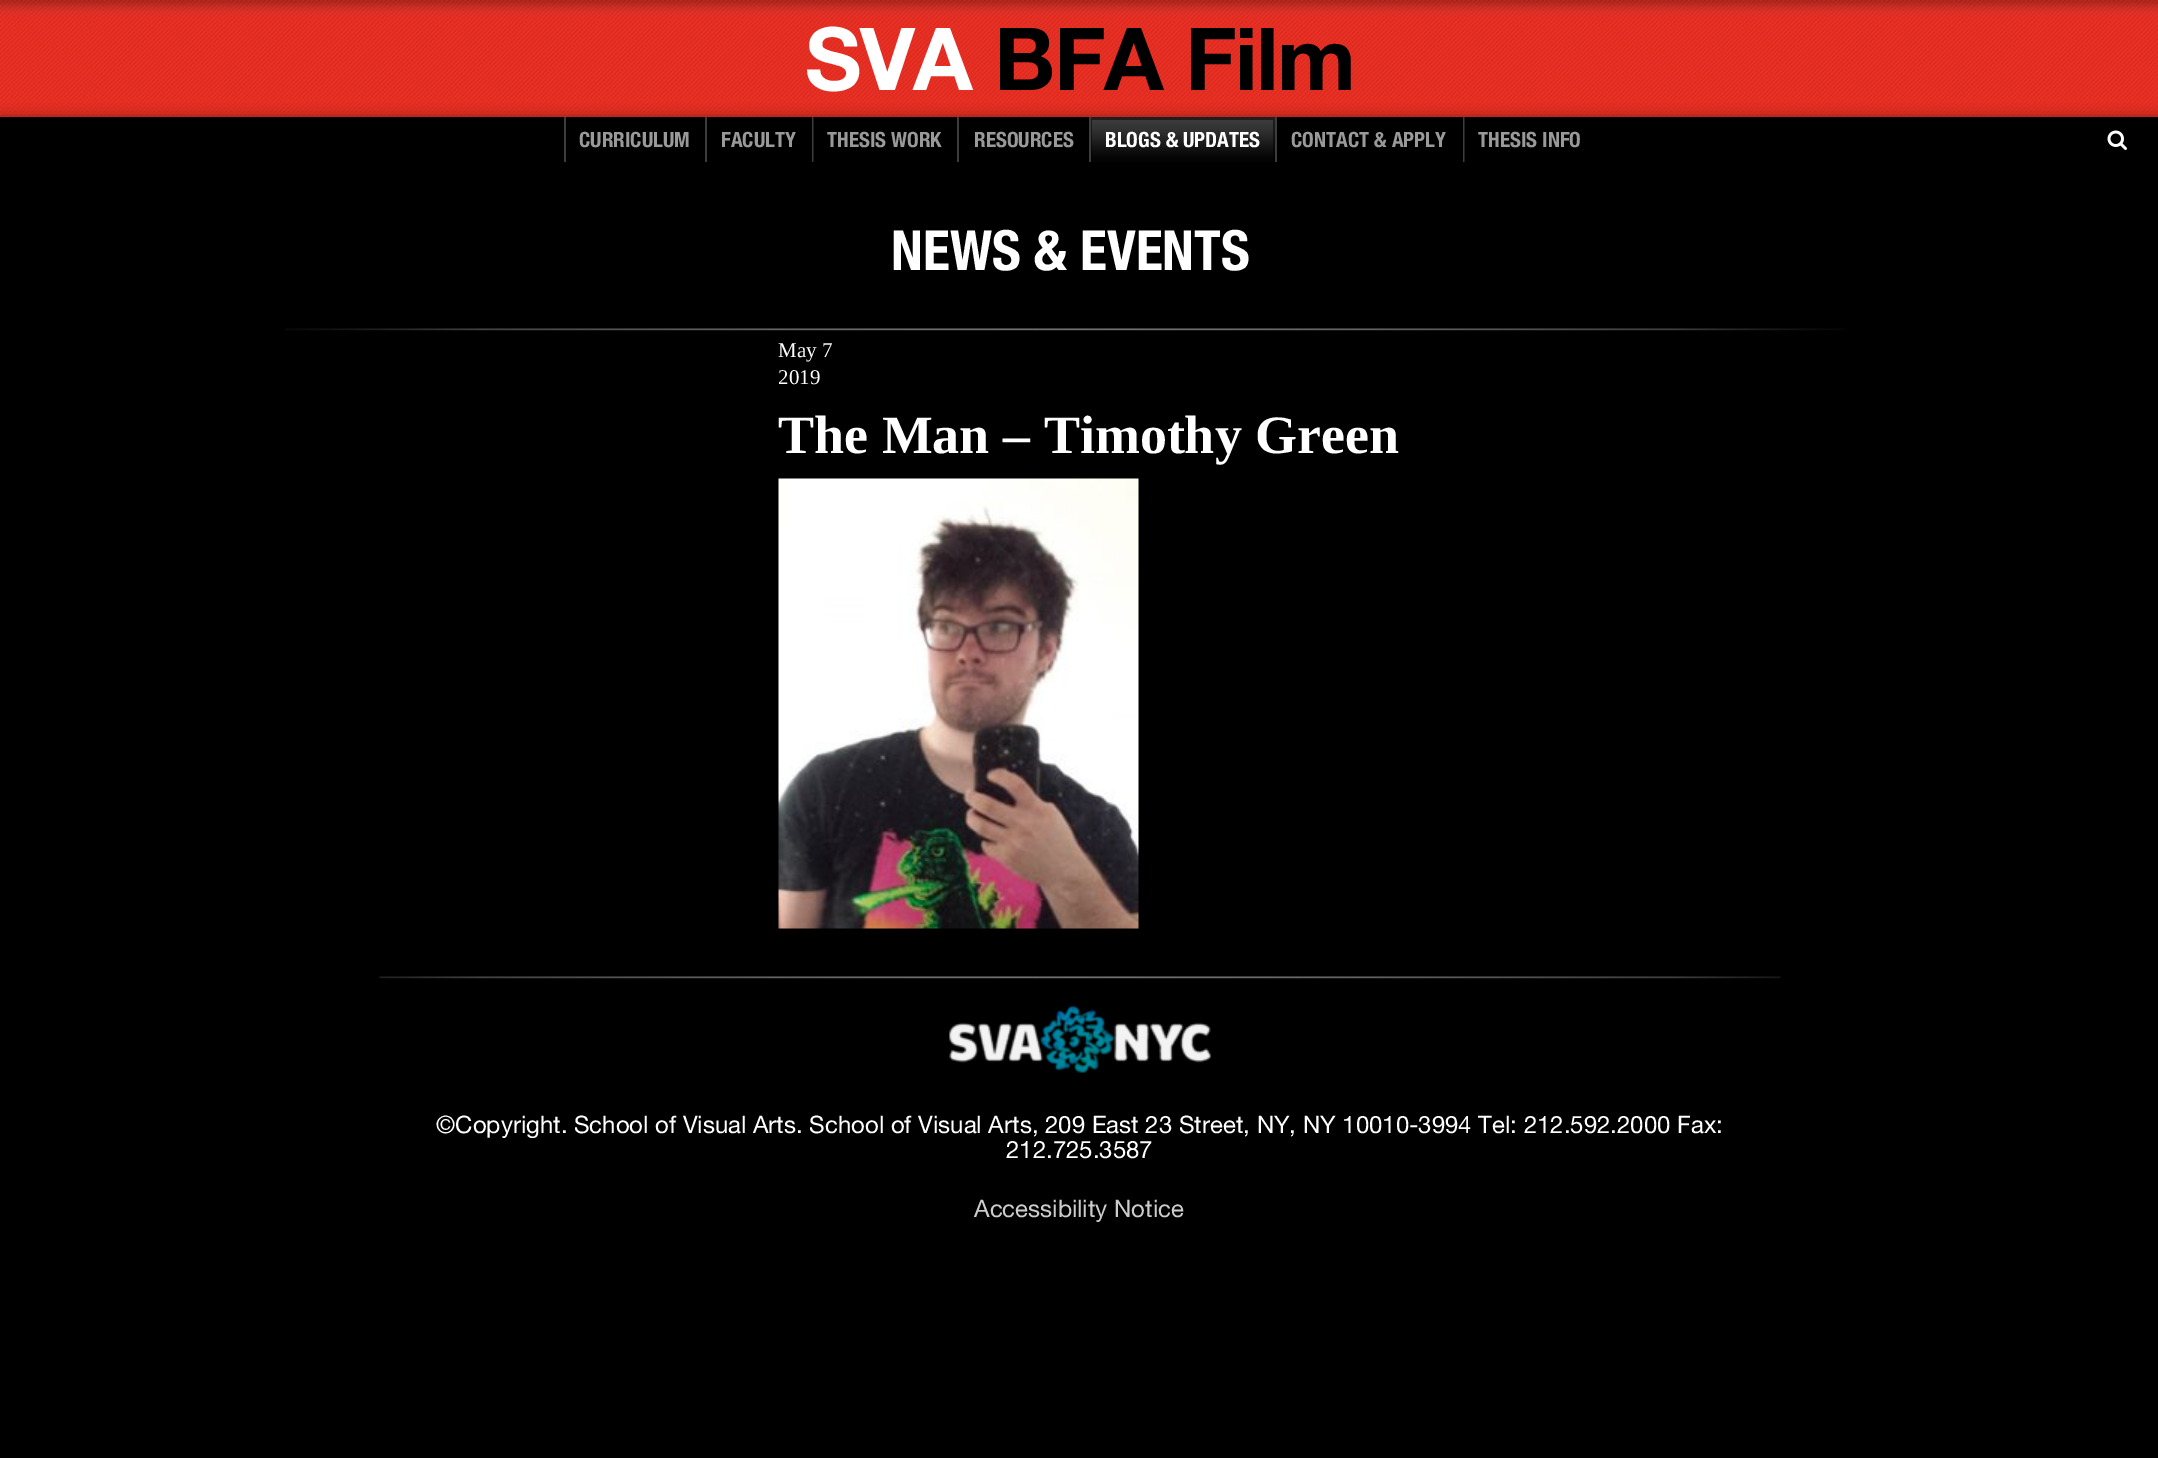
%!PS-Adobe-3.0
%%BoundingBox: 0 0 2158 1458
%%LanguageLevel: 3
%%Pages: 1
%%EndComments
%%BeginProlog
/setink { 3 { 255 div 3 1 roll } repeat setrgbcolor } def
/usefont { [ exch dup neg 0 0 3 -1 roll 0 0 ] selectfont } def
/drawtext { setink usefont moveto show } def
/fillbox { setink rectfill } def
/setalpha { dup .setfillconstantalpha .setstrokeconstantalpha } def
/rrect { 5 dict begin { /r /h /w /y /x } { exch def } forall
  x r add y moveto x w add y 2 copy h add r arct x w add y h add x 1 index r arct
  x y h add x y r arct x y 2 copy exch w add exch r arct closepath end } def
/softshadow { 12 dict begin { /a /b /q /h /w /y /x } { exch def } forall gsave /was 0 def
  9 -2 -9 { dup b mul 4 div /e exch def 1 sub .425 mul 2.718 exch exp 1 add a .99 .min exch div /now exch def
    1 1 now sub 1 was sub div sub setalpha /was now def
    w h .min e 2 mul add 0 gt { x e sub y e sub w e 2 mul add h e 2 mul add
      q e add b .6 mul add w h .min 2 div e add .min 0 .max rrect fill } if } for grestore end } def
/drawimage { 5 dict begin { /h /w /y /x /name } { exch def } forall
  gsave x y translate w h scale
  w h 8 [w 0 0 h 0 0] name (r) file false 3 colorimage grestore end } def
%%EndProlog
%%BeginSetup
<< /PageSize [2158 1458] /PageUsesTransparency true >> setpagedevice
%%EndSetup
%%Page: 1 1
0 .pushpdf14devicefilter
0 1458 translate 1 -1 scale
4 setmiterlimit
0 0 2158 1458 0 0 0 fillbox
(assets/img1.rgb) 0 0 2158 117 drawimage
/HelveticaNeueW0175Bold-Bold 87 usefont
255 255 255 setink
805 90 moveto -1.5 0 (SVA) ashow
0 0 0 setink
994 90 moveto -1.5 0 (BFA Film) ashow
gsave
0 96 moveto 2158 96 lineto 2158 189 lineto 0 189 lineto closepath 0 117 moveto 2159 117 lineto 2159 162 lineto 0 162 lineto closepath eoclip newpath
0 120 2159 45 0 7.5 0.6 softshadow
grestore
564 117 2 45 60 60 60 fillbox
(CURRICULUM) 579 147 /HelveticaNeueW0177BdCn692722-Regular 21 153 153 153 drawtext
705 117 2 45 60 60 60 fillbox
(FACULTY) 721 147 /HelveticaNeueW0177BdCn692722-Regular 21 153 153 153 drawtext
812 117 2 45 60 60 60 fillbox
gsave
813 117 144 45 rectclip
0.5 setalpha
0 0 0 setink
664 -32 moveto 1105 -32 lineto 1105 310 lineto 664 310 lineto closepath 814 120 moveto 955 120 lineto 955 162 lineto 814 162 lineto closepath eofill
grestore
(THESIS WORK) 827 147 /HelveticaNeueW0177BdCn692722-Regular 21 153 153 153 drawtext
957 117 2 45 60 60 60 fillbox
(RESOURCES) 974 147 /HelveticaNeueW0177BdCn692722-Regular 21 153 153 153 drawtext
1089 117 2 45 60 60 60 fillbox
gsave 1091 117 moveto 1275 117 lineto 1275 162 lineto 1091 162 lineto closepath clip newpath
<< /ShadingType 2 /ColorSpace /DeviceRGB /Coords [1182 117 1182 162] /Extend [true true] /Function << /FunctionType 3 /Domain [0 1] /Functions [<< /FunctionType 2 /Domain [0 1] /C0 [0.243 0.243 0.243] /C1 [0.231 0.231 0.231] /N 1 >> << /FunctionType 2 /Domain [0 1] /C0 [0.231 0.231 0.231] /C1 [0.204 0.204 0.204] /N 1 >> << /FunctionType 2 /Domain [0 1] /C0 [0.204 0.204 0.204] /C1 [0.196 0.196 0.196] /N 1 >> << /FunctionType 2 /Domain [0 1] /C0 [0.196 0.196 0.196] /C1 [0.047 0.047 0.047] /N 1 >> << /FunctionType 2 /Domain [0 1] /C0 [0.047 0.047 0.047] /C1 [0.016 0.016 0.016] /N 1 >> << /FunctionType 2 /Domain [0 1] /C0 [0.016 0.016 0.016] /C1 [0.016 0.016 0.016] /N 1 >>] /Bounds [0.1 0.21 0.28 0.79 0.93] /Encode [0 1 0 1 0 1 0 1 0 1 0 1] >> >> shfill grestore
gsave
1091 117 184 45 rectclip
0.5 setalpha
0 0 0 setink
942 -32 moveto 1423 -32 lineto 1423 310 lineto 942 310 lineto closepath 1092 120 moveto 1273 120 lineto 1273 162 lineto 1092 162 lineto closepath eofill
grestore
(BLOGS & UPDATES) 1105 147 /HelveticaNeueW0177BdCn692722-Regular 21 255 255 255 drawtext
1275 117 2 45 60 60 60 fillbox
(CONTACT & APPLY) 1291 147 /HelveticaNeueW0177BdCn692722-Regular 21 153 153 153 drawtext
1463 117 2 45 60 60 60 fillbox
gsave
1464 117 132 45 rectclip
0.5 setalpha
0 0 0 setink
1315 -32 moveto 1744 -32 lineto 1744 310 lineto 1315 310 lineto closepath 1465 120 moveto 1594 120 lineto 1594 162 lineto 1465 162 lineto closepath eofill
grestore
(THESIS INFO) 1478 147 /HelveticaNeueW0177BdCn692722-Regular 21 153 153 153 drawtext
(assets/img2.rgb) 2107 130 20 20 drawimage
(assets/img3.rgb) 285 328 1561 3 drawimage
(NEWS & EVENTS) 891 270 /HelveticaNeueW0177BdCn692722-Regular 55.5 255 255 255 drawtext
(May 7) 778 357 /LiberationSerif-Regular 21 255 255 255 drawtext
(2019) 778 384 /LiberationSerif-Regular 21 255 255 255 drawtext
(The Man – Timothy Green) 778 453 /LiberationSerif-Bold 54 255 255 255 drawtext
(assets/img4.rgb) 778 478 361 451 drawimage
(assets/img5.rgb) 379 976 1402 3 drawimage
(assets/img6.rgb) 949 1006 262 67 drawimage
(©Copyright. School of Visual Arts. School of Visual Arts, 209 East 23 Street, NY, NY 10010-3994 Tel: 212.592.2000 Fax:) 436 1133 /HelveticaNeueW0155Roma-Regular 24 255 255 255 drawtext
(212.725.3587) 1006 1158 /HelveticaNeueW0155Roma-Regular 24 255 255 255 drawtext
(Accessibility Notice) 974 1217 /HelveticaNeueW0155Roma-Regular 24 204 204 204 drawtext
.poppdf14devicefilter showpage
%%EOF
